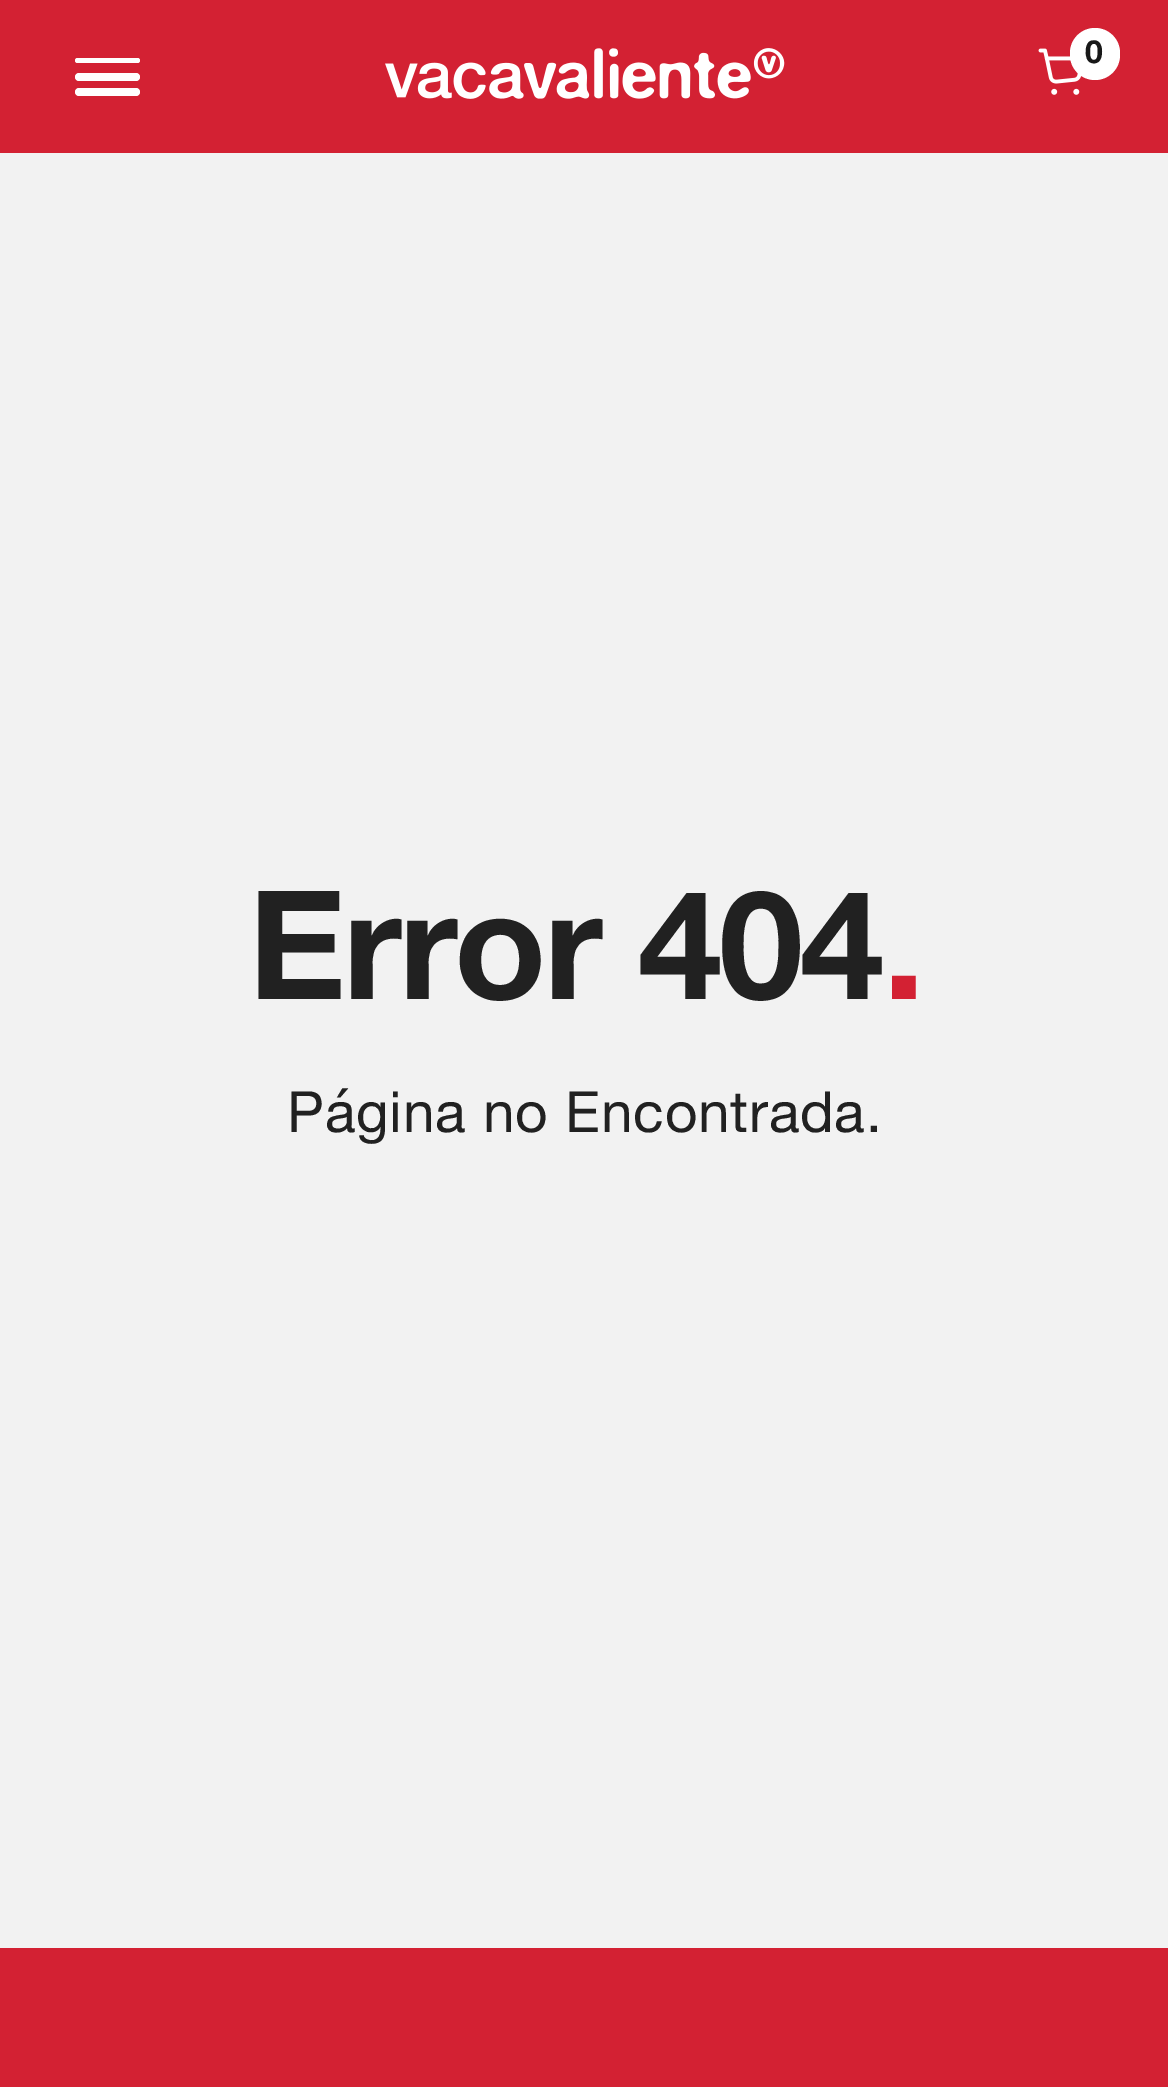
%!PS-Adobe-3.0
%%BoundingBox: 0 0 1168 2087
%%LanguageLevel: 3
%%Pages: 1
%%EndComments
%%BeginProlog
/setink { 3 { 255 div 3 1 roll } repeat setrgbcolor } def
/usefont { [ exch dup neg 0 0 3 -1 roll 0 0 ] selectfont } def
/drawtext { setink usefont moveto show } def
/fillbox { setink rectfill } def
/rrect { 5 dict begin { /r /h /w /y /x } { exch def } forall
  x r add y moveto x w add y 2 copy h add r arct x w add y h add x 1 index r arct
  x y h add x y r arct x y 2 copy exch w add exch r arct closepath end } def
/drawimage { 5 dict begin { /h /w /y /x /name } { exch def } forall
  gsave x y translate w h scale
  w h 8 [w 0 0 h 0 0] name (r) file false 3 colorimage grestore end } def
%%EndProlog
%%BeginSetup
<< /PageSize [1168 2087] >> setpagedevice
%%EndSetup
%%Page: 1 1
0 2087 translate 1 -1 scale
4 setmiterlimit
0 0 1168 2087 242 242 242 fillbox
0 0 1168 153 211 33 51 fillbox
255 255 255 setink
75 58 65 5 2.5 rrect fill
75 73 65 8 4 rrect fill
75 88 65 8 4 rrect fill
(assets/img1.rgb) 385 48 400 51 drawimage
(assets/img2.rgb) 1038 48 44 47 drawimage
1070 28 50 52 25 rrect fill
(0) 1085 63 /HelveticaNeue-Bold 32 24 24 24 drawtext
/HelveticaNeue-Bold 151.5 usefont
33 33 33 setink
248 999 moveto -3.25 0 (Error 404) ashow
211 33 51 setink
883 999 moveto -3.25 0 (.) ashow
/HelveticaNeue-Regular 56.9 usefont
33 33 33 setink
287 1132 moveto 0.75 0 (Página no Encontrada.) ashow
0 1948 1168 139 211 33 51 fillbox
showpage
%%EOF
